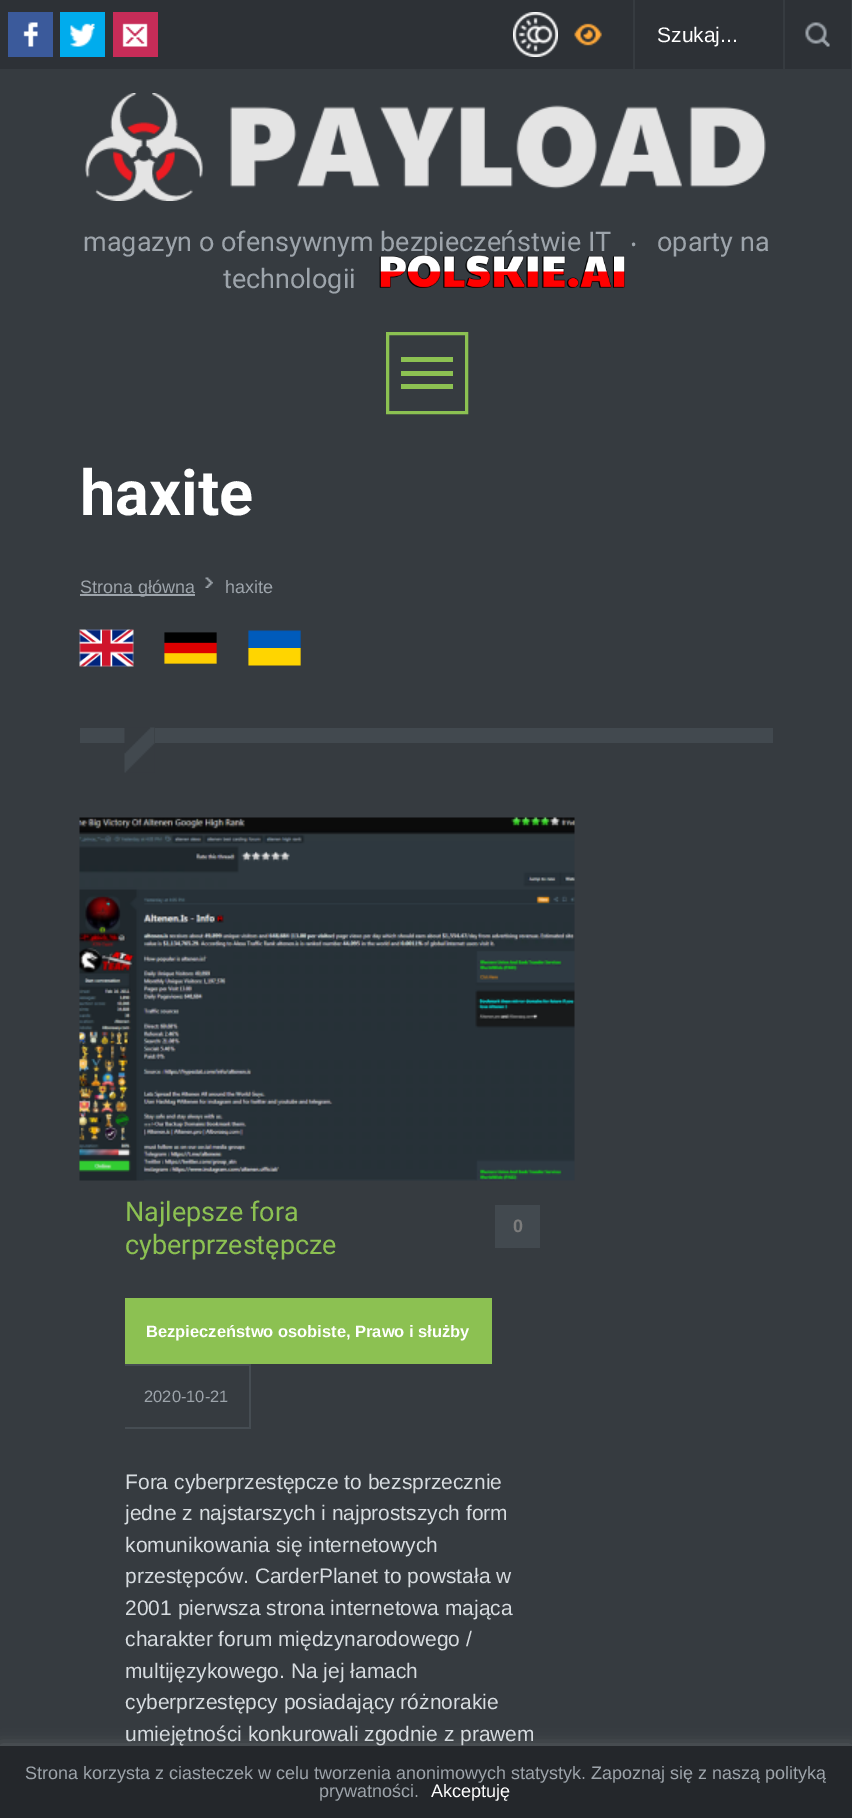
%!PS-Adobe-3.0
%%BoundingBox: 0 0 852 1818
%%LanguageLevel: 3
%%Pages: 1
%%EndComments
%%BeginProlog
/setink { 3 { 255 div 3 1 roll } repeat setrgbcolor } def
/usefont { [ exch dup neg 0 0 3 -1 roll 0 0 ] selectfont } def
/drawtext { setink usefont moveto show } def
/fillbox { setink rectfill } def
/setalpha { dup .setfillconstantalpha .setstrokeconstantalpha } def
/rrect { 5 dict begin { /r /h /w /y /x } { exch def } forall
  x r add y moveto x w add y 2 copy h add r arct x w add y h add x 1 index r arct
  x y h add x y r arct x y 2 copy exch w add exch r arct closepath end } def
/softshadow { 12 dict begin { /a /b /q /h /w /y /x } { exch def } forall gsave /was 0 def
  9 -2 -9 { dup b mul 4 div /e exch def 1 sub .425 mul 2.718 exch exp 1 add a .99 .min exch div /now exch def
    1 1 now sub 1 was sub div sub setalpha /was now def
    w h .min e 2 mul add 0 gt { x e sub y e sub w e 2 mul add h e 2 mul add
      q e add b .6 mul add w h .min 2 div e add .min 0 .max rrect fill } if } for grestore end } def
/drawimage { 5 dict begin { /h /w /y /x /name } { exch def } forall
  gsave x y translate w h scale
  w h 8 [w 0 0 h 0 0] name (r) file false 3 colorimage grestore end } def
%%EndProlog
%%BeginSetup
<< /PageSize [852 1818] /PageUsesTransparency true >> setpagedevice
%%EndSetup
%%Page: 1 1
0 .pushpdf14devicefilter
0 1818 translate 1 -1 scale
4 setmiterlimit
0 0 852 1818 54 59 64 fillbox
0 0 851 69 45 49 54 fillbox
8 12 45 45 59 90 155 fillbox
(assets/img1.rgb) 23 22 15 25 drawimage
60 12 45 45 0 172 237 fillbox
(assets/img2.rgb) 70 23 25 24 drawimage
113 12 45 45 199 44 88 fillbox
(assets/img3.rgb) 122 23 26 24 drawimage
(assets/img4.rgb) 513 12 45 45 drawimage
(assets/img5.rgb) 574 23 28 23 drawimage
633 0 2 69 54 59 64 fillbox
783 0 2 69 54 59 64 fillbox
(Szukaj...) 657 42 /LiberationSans-Regular 21 255 255 255 drawtext
(assets/img6.rgb) 805 22 25 25 drawimage
(assets/img7.rgb) 85 93 681 108 drawimage
(magazyn o ofensywnym bezpiecze) 83 251 /Roboto-Regular 27 157 164 171 drawtext
(ń) 500 251 /NotoSans-Regular 27 157 164 171 drawtext
(stwie IT) 517 251 /Roboto-Regular 27 157 164 171 drawtext
(‧) 630 251 /NotoSans-Regular 27 157 164 171 drawtext
(oparty na) 657 251 /Roboto-Regular 27 157 164 171 drawtext
(technologii) 223 288 /Roboto-Regular 27 157 164 171 drawtext
(assets/img8.rgb) 379 255 246 33 drawimage
140 193 82 setink
3 setlinewidth
387.5 333.5 79 79 rectstroke
401 357 52 5 140 193 82 fillbox
401 371 52 5 140 193 82 fillbox
401 384 52 5 140 193 82 fillbox
(haxite) 80 515 /Roboto-Bold 63 255 255 255 drawtext
80 594 115 2 157 164 171 fillbox
(Strona główna) 80 593 /LiberationSans-Regular 18 157 164 171 drawtext
(assets/img9.rgb) 205 577 8 11 drawimage
(haxite) 225 593 /LiberationSans-Regular 18 157 164 171 drawtext
(assets/img10.rgb) 79 629 55 38 drawimage
(assets/img11.rgb) 164 632 53 32 drawimage
(assets/img12.rgb) 248 630 53 36 drawimage
80 728 45 15 66 73 79 fillbox
(assets/img13.rgb) 124 727 31 46 drawimage
155 728 618 15 66 73 79 fillbox
(assets/img14.rgb) 79 817 496 364 drawimage
(Najlepsze fora) 125 1221 /Roboto-Regular 27 140 193 82 drawtext
(cyberprzestępcze) 125 1254 /Roboto-Regular 27 140 193 82 drawtext
495 1205 45 43 66 73 79 fillbox
(0) 513 1232 /LiberationSans-Bold 18 124 124 124 drawtext
125 1298 367 66 140 193 82 fillbox
(Bezpieczeństwo osobiste, Prawo i służby) 146 1337 /LiberationSans-Bold 16.5 255 255 255 drawtext
125 1364 126 2 70 77 83 fillbox
249 1364 2 64 70 77 83 fillbox
125 1427 126 2 70 77 83 fillbox
(2020-10-21) 144 1402 /LiberationSans-Regular 16.5 157 164 171 drawtext
(Fora cyberprzestępcze to bezsprzecznie) 125 1489 /LiberationSans-Regular 21 215 220 224 drawtext
(jedne z najstarszych i najprostszych form) 125 1520 /LiberationSans-Regular 21 215 220 224 drawtext
(komunikowania się internetowych) 125 1552 /LiberationSans-Regular 21 215 220 224 drawtext
(przestępców. CarderPlanet to powstała w) 125 1583 /LiberationSans-Regular 21 215 220 224 drawtext
(2001 pierwsza strona internetowa mająca) 125 1615 /LiberationSans-Regular 21 215 220 224 drawtext
(charakter forum międzynarodowego /) 125 1646 /LiberationSans-Regular 21 215 220 224 drawtext
(multijęzykowego. Na jej łamach) 125 1678 /LiberationSans-Regular 21 215 220 224 drawtext
(cyberprzestępcy posiadający różnorakie) 125 1709 /LiberationSans-Regular 21 215 220 224 drawtext
(umiejętności konkurowali zgodnie z prawem) 125 1741 /LiberationSans-Regular 21 215 220 224 drawtext
172 171 171 setink
0 1745 852 72 0 7.5 0.3 softshadow
0 1746 852 72 36 39 43 fillbox
(Strona korzysta z ciasteczek w celu tworzenia anonimowych statystyk. Zapoznaj się z naszą polityką) 25 1779 /LiberationSans-Regular 18 157 164 171 drawtext
(prywatności.) 319 1797 /LiberationSans-Regular 18 157 164 171 drawtext
(Akceptuję) 431 1797 /LiberationSans-Regular 18 255 255 255 drawtext
.poppdf14devicefilter showpage
%%EOF
